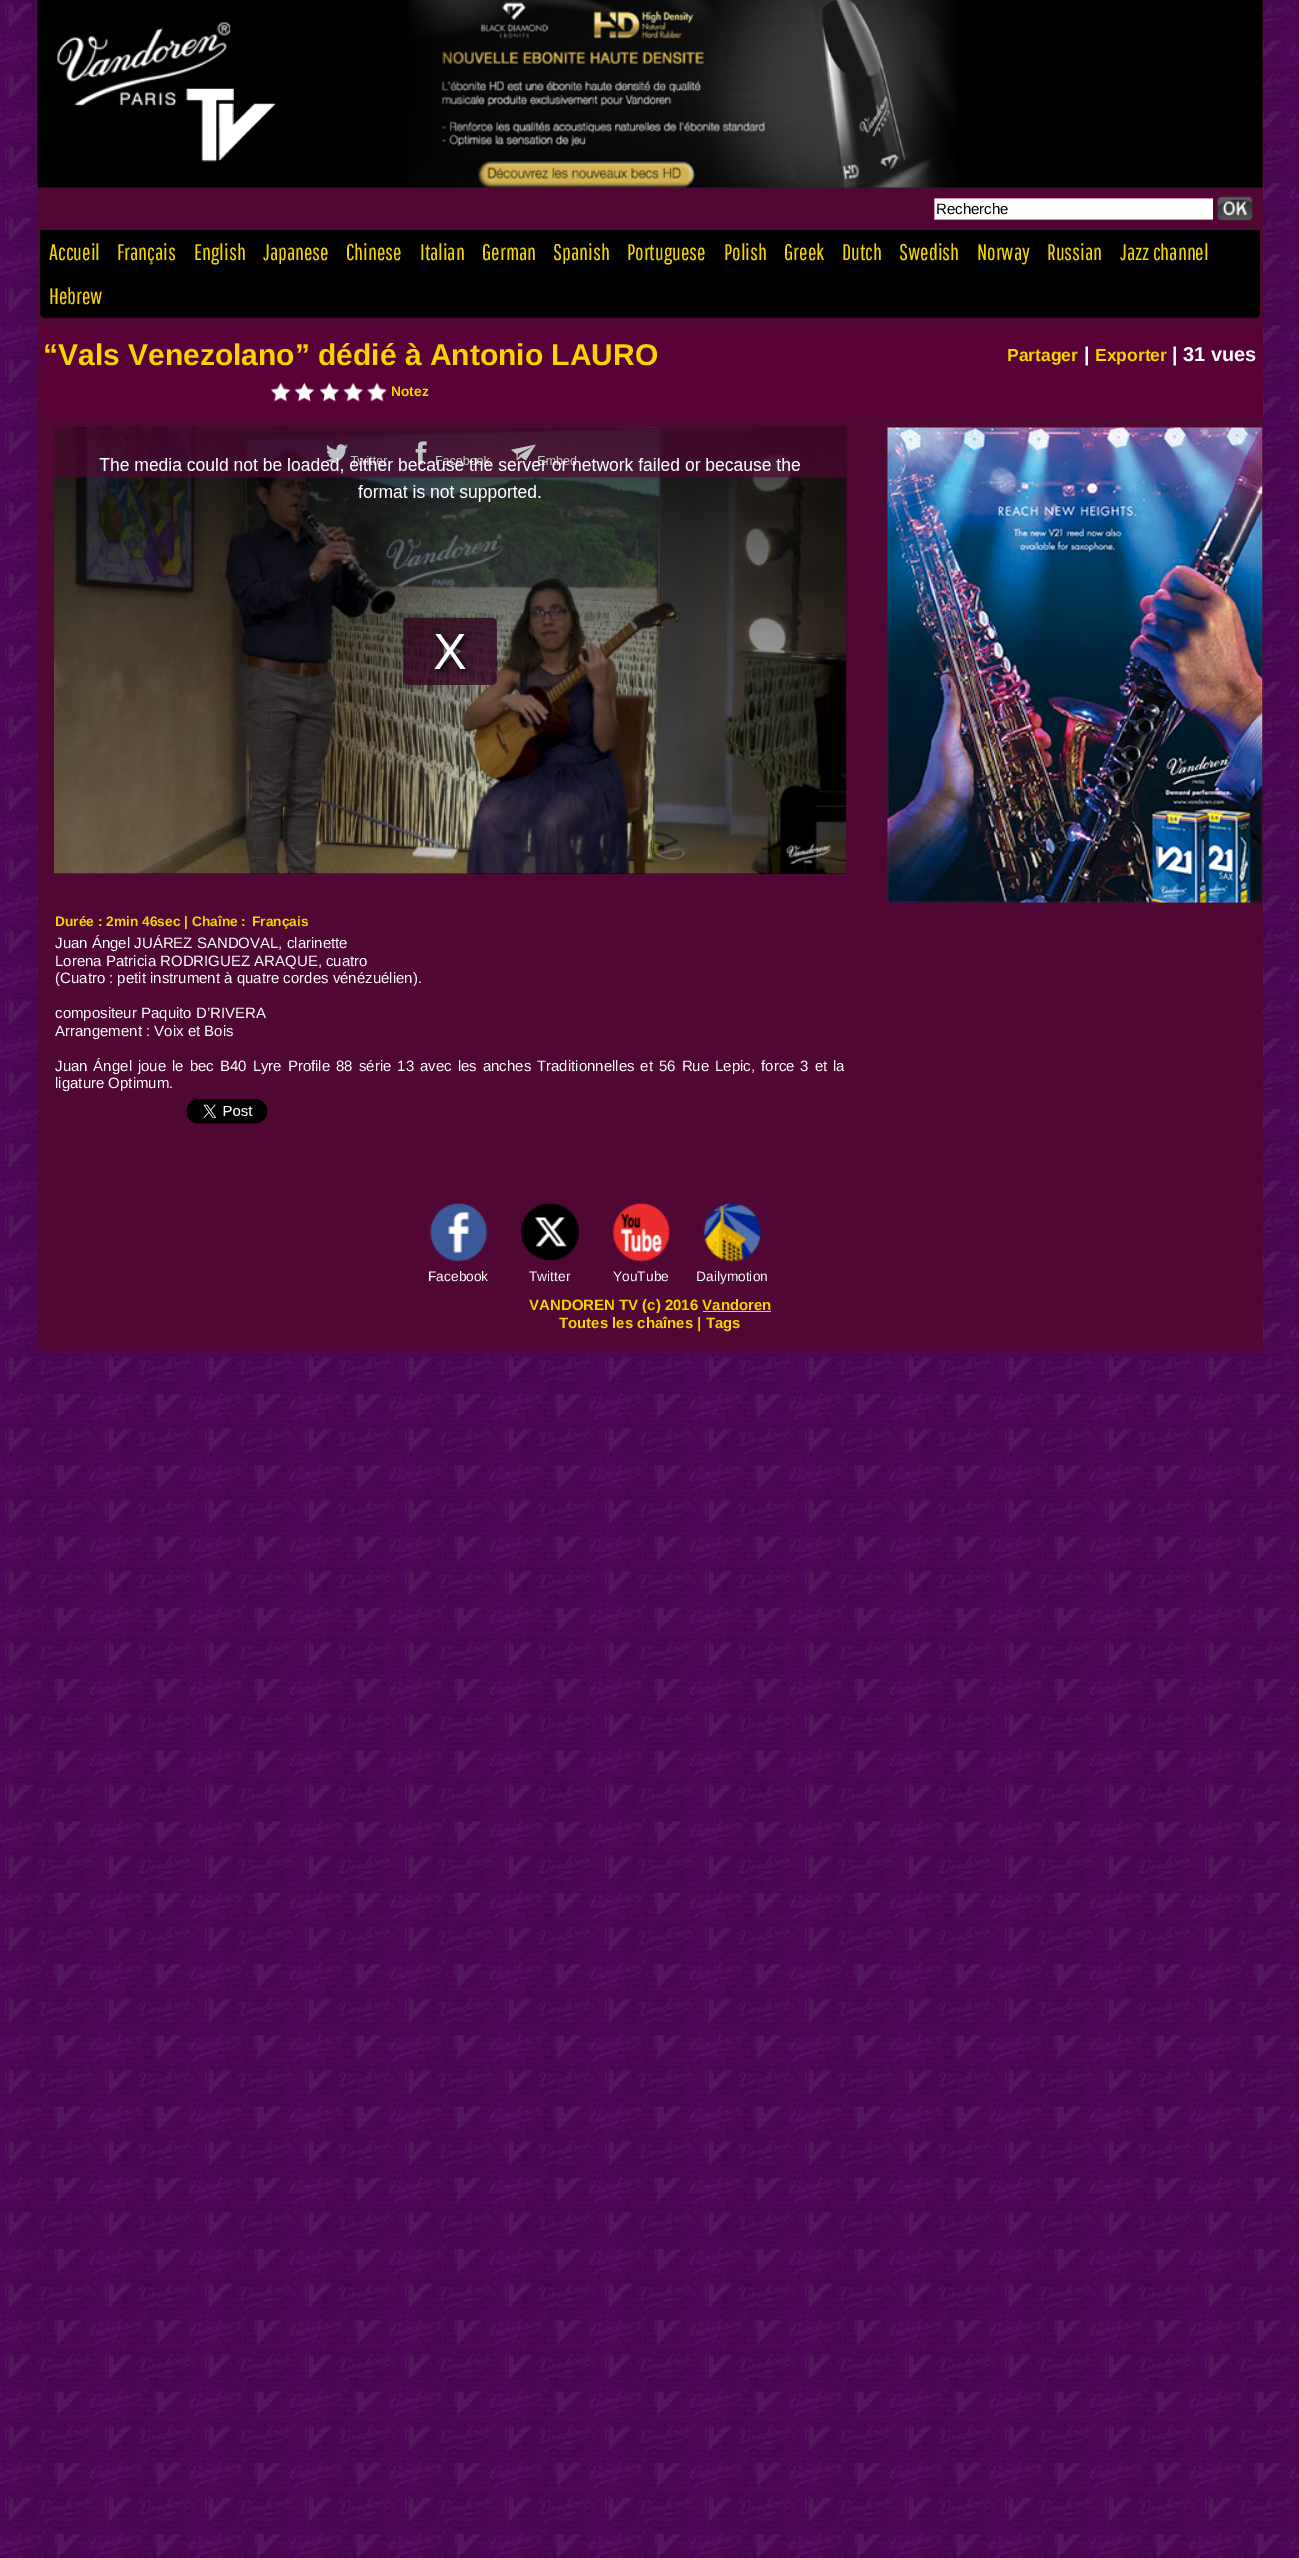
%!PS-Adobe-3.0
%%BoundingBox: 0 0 1299 2558
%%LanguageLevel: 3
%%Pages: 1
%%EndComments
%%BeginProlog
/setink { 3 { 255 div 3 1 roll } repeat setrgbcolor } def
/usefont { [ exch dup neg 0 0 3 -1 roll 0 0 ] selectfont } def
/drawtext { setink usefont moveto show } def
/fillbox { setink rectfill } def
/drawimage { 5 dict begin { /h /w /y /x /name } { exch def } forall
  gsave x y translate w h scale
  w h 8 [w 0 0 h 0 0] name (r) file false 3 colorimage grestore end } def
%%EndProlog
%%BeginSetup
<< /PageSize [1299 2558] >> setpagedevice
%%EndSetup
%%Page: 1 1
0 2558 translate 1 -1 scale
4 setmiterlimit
0 0 1299 2558 255 255 255 fillbox
(assets/img1.rgb) 0 0 1299 2558 drawimage
38 0 1225 1351 80 7 52 fillbox
(assets/img2.rgb) 37 0 1226 188 drawimage
935 199 278 20 255 255 255 fillbox
934 198 279 1 221 133 189 fillbox
934 219 279 1 221 133 189 fillbox
934 198 1 22 221 133 189 fillbox
(Recherche) 936 214 /LiberationSans-Regular 15 0 0 0 drawtext
(assets/img3.rgb) 1217 196 36 25 drawimage
40 230 moveto 1260 230 lineto 1260 312 lineto 1260 315.5 1257.5 318 1254 318 curveto 46 318 lineto 42.5 318 40 315.5 40 312 curveto closepath fill
(Accueil) 49 260 /PathwayGothicOne-Regular 22.5 245 212 0 drawtext
(Français) 117 260 /PathwayGothicOne-Regular 22.5 245 212 0 drawtext
(English) 194 260 /PathwayGothicOne-Regular 22.5 245 212 0 drawtext
(Japanese) 263 260 /PathwayGothicOne-Regular 22.5 245 212 0 drawtext
(Chinese) 346 260 /PathwayGothicOne-Regular 22.5 245 212 0 drawtext
(Italian) 420 260 /PathwayGothicOne-Regular 22.5 245 212 0 drawtext
(German) 482 260 /PathwayGothicOne-Regular 22.5 245 212 0 drawtext
(Spanish) 553 260 /PathwayGothicOne-Regular 22.5 245 212 0 drawtext
(Portuguese) 627 260 /PathwayGothicOne-Regular 22.5 245 212 0 drawtext
(Polish) 724 260 /PathwayGothicOne-Regular 22.5 245 212 0 drawtext
(Greek) 784 260 /PathwayGothicOne-Regular 22.5 245 212 0 drawtext
(Dutch) 842 260 /PathwayGothicOne-Regular 22.5 245 212 0 drawtext
(Swedish) 899 260 /PathwayGothicOne-Regular 22.5 245 212 0 drawtext
(Norway) 977 260 /PathwayGothicOne-Regular 22.5 245 212 0 drawtext
(Russian) 1047 260 /PathwayGothicOne-Regular 22.5 245 212 0 drawtext
(Jazz channel) 1120 260 /PathwayGothicOne-Regular 22.5 245 212 0 drawtext
(Hebrew) 49 304 /PathwayGothicOne-Regular 22.5 245 212 0 drawtext
40 328 1223 90 89 0 55 fillbox
(“Vals Venezolano” dédié à Antonio LAURO) 43 365 /LiberationSans-Bold 30 245 212 0 drawtext
(assets/img4.rgb) 271 382 20 20 drawimage
(assets/img5.rgb) 295 382 19 20 drawimage
(assets/img5.rgb) 320 382 19 20 drawimage
(assets/img6.rgb) 343 382 20 20 drawimage
(assets/img7.rgb) 367 382 20 20 drawimage
(Notez) 391 396 /LiberationSans-Bold 13.75 245 212 0 drawtext
(Partager) 1007 361 /LiberationSans-Bold 17.5 245 212 0 drawtext
(|) 1084 361 /LiberationSans-Bold 20 255 255 255 drawtext
(Exporter) 1095 361 /LiberationSans-Bold 17.5 245 212 0 drawtext
(| 31 vues) 1172 361 /LiberationSans-Bold 20 255 255 255 drawtext
(assets/img8.rgb) 53 427 794 447 drawimage
(assets/img9.rgb) 887 427 376 476 drawimage
(Durée : 2min 46sec | Chaîne :) 55 926 /LiberationSans-Bold 13.75 245 212 0 drawtext
(Français) 252 926 /LiberationSans-Bold 13.75 245 212 0 drawtext
(Juan Ángel JUÁREZ SANDOVAL, clarinette) 55 948 /LiberationSans-Regular 15 255 255 255 drawtext
(Lorena Patricia RODRIGUEZ ARAQUE, cuatro) 55 966 /LiberationSans-Regular 15 255 255 255 drawtext
(\(Cuatro : petit instrument à quatre cordes vénézuélien\).) 55 983 /LiberationSans-Regular 15 255 255 255 drawtext
(compositeur Paquito D’RIVERA) 55 1018 /LiberationSans-Regular 15 255 255 255 drawtext
(Arrangement : Voix et Bois) 55 1036 /LiberationSans-Regular 15 255 255 255 drawtext
55 1071 moveto 1.8 0 32 (Juan Ángel joue le bec B40 Lyre Profile 88 série 13 avec les anches Traditionnelles et 56 Rue Lepic, force 3 et la) widthshow
(ligature Optimum.) 55 1088 /LiberationSans-Regular 15 255 255 255 drawtext
(assets/img10.rgb) 186 1098 82 26 drawimage
(assets/img11.rgb) 430 1203 58 59 drawimage
(Facebook) 428 1281 /LiberationSans-Regular 13.75 255 255 255 drawtext
(assets/img12.rgb) 521 1203 58 58 drawimage
(Twitter) 529 1281 /LiberationSans-Regular 13.75 255 255 255 drawtext
(assets/img13.rgb) 612 1203 58 59 drawimage
(YouTube) 613 1281 /LiberationSans-Regular 13.75 255 255 255 drawtext
(assets/img14.rgb) 703 1203 59 59 drawimage
(Dailymotion) 696 1281 /LiberationSans-Regular 13.75 255 255 255 drawtext
(VANDOREN TV \(c\) 2016 Vandoren) 529 1310 /LiberationSans-Bold 15 245 212 0 drawtext
703 1311 68 1 245 212 0 fillbox
(Toutes les chaînes | Tags) 559 1328 /LiberationSans-Bold 15 245 212 0 drawtext
showpage
%%EOF
